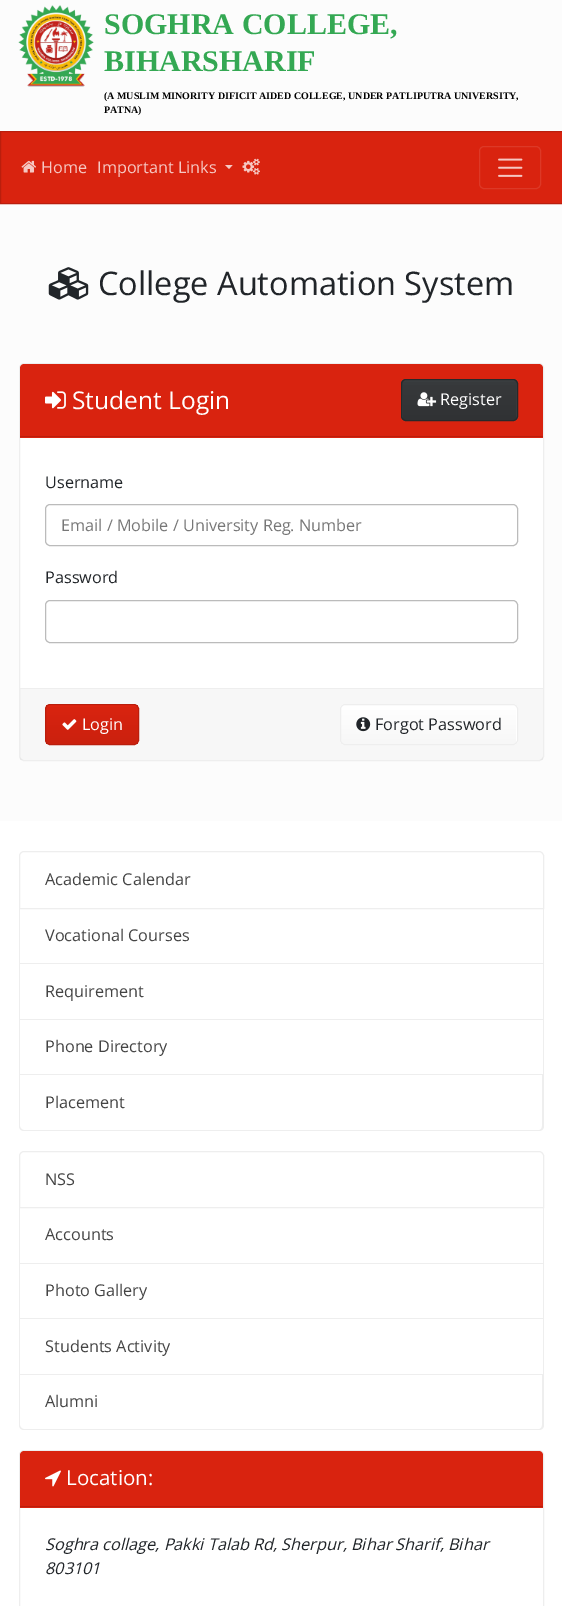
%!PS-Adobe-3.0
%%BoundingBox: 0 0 562 1606
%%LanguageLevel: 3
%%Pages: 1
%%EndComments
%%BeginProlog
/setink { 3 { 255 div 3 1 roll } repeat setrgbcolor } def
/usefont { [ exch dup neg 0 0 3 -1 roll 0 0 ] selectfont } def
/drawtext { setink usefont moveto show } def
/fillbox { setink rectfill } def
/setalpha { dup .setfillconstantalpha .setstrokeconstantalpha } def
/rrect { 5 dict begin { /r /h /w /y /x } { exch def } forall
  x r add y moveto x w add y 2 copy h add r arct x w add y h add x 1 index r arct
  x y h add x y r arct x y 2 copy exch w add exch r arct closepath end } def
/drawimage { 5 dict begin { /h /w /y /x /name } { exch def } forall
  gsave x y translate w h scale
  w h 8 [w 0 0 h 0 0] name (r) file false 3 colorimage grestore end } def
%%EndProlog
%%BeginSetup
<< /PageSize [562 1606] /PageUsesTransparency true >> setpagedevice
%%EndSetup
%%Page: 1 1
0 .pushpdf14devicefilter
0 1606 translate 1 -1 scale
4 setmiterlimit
0 0 562 1606 252 252 252 fillbox
(assets/img1.rgb) 18 5 76 82 drawimage
(SOGHRA COLLEGE,) 104 34 /LiberationSerif-Bold 30 52 168 83 drawtext
(BIHARSHARIF) 104 71 /LiberationSerif-Bold 30 52 168 83 drawtext
(\(A MUSLIM MINORITY DIFICIT AIDED COLLEGE, UNDER PATLIPUTRA UNIVERSITY,) 104 99 /LiberationSerif-Bold 10 0 0 0 drawtext
(PATNA\)) 104 113 /LiberationSerif-Bold 10 0 0 0 drawtext
217 35 15 setink
0.5 131.5 moveto 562.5 131.5 lineto 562.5 203.5 lineto 0.5 203.5 lineto closepath gsave fill grestore
186 30 13 setink
stroke
(assets/img2.rgb) 21 160 15 13 drawimage
(Home) 41 173 /OpenSans-Regular 16.25 246 200 195 drawtext
(Important Links) 97 173 /OpenSans-Regular 16.25 246 200 195 drawtext
225 165 moveto 232.5 165 lineto 229 169 lineto closepath fill
(assets/img3.rgb) 242 158 18 17 drawimage
221 57 39 setink
479.5 146.5 61 42 4.5 rrect stroke
(assets/img4.rgb) 498 158 25 19 drawimage
(assets/img5.rgb) 48 267 41 33 drawimage
(College Automation System) 98 295 /OpenSans-Regular 32.5 33 37 41 drawtext
255 255 255 setink
19.5 363.5 524 397 4.5 rrect gsave fill grestore
238 238 238 setink
stroke
217 35 15 setink
24 364 moveto 539 364 lineto 541 364 543 366 543 368 curveto 543 438 lineto 20 438 lineto 20 368 lineto 20 366 22 364 24 364 curveto closepath fill
20 436 523 1 186 30 13 fillbox
(assets/img6.rgb) 45 391 21 18 drawimage
(Student Login) 72 409 /OpenSans-Regular 24.5 255 255 255 drawtext
55 58 60 setink
401 379 117 42 5 rrect fill
gsave 403 380 moveto 516 380 lineto 516 420 lineto 403 420 lineto closepath clip newpath
<< /ShadingType 2 /ColorSpace /DeviceRGB /Coords [459 380 459 420] /Extend [true true] /Function << /FunctionType 3 /Domain [0 1] /Functions [<< /FunctionType 2 /Domain [0 1] /C0 [0.243 0.259 0.267] /C1 [0.216 0.227 0.235] /N 1 >> << /FunctionType 2 /Domain [0 1] /C0 [0.216 0.227 0.235] /C1 [0.188 0.196 0.204] /N 1 >>] /Bounds [0.06] /Encode [0 1 0 1] >> >> shfill grestore
39 41 43 setink
401.5 379.5 116 41 4.5 rrect stroke
(assets/img7.rgb) 417 392 20 15 drawimage
(Register) 440 405 /OpenSans-Regular 16.25 255 255 255 drawtext
(Username) 45 488 /OpenSans-Regular 16.25 33 37 41 drawtext
187 187 187 setink
45.5 504.5 472 41 4.5 rrect stroke
(Email / Mobile / University Reg. Number) 61 531 /OpenSans-Regular 16.25 119 119 119 drawtext
(Password) 45 583 /OpenSans-Regular 16.25 33 37 41 drawtext
187 187 187 setink
45.5 600.5 472 42 4.5 rrect stroke
0.03 setalpha
20 689 523 71 0 0 0 fillbox
1 setalpha
20 688 523 1 238 238 238 fillbox
gsave
45 704 94 41 5 rrect clip newpath
gsave 46 705 moveto 138 705 lineto 138 744 lineto 46 744 lineto closepath clip newpath
<< /ShadingType 2 /ColorSpace /DeviceRGB /Coords [92 705 92 744] /Extend [true true] /Function << /FunctionType 3 /Domain [0 1] /Functions [<< /FunctionType 2 /Domain [0 1] /C0 [0.906 0.145 0.063] /C1 [0.851 0.137 0.059] /N 1 >> << /FunctionType 2 /Domain [0 1] /C0 [0.851 0.137 0.059] /C1 [0.796 0.129 0.055] /N 1 >>] /Bounds [0.06] /Encode [0 1 0 1] >> >> shfill grestore
grestore
186 30 13 setink
45.5 704.5 93 40 4.5 rrect stroke
(assets/img8.rgb) 62 719 15 11 drawimage
(Login) 82 730 /OpenSans-Regular 16.25 255 255 255 drawtext
340 704 178 41 5 rrect fill
gsave 341 705 moveto 516 705 lineto 516 744 lineto 341 744 lineto closepath clip newpath
<< /ShadingType 2 /ColorSpace /DeviceRGB /Coords [429 705 429 744] /Extend [true true] /Function << /FunctionType 3 /Domain [0 1] /Functions [<< /FunctionType 2 /Domain [0 1] /C0 [1 1 1] /C1 [1 1 1] /N 1 >> << /FunctionType 2 /Domain [0 1] /C0 [1 1 1] /C1 [0.969 0.969 0.969] /N 1 >>] /Bounds [0.06] /Encode [0 1 0 1] >> >> shfill grestore
238 238 238 setink
340.5 704.5 177 40 4.5 rrect stroke
(assets/img9.rgb) 356 717 15 15 drawimage
(Forgot Password) 375 730 /OpenSans-Regular 16.25 33 37 41 drawtext
0 821 562 785 255 255 255 fillbox
238 238 238 setink
24 851.5 moveto 539 851.5 lineto 541.5 851.5 543.5 853.5 543.5 856 curveto 543.5 908.5 lineto 19.5 908.5 lineto 19.5 856 lineto 19.5 853.5 21.5 851.5 24 851.5 curveto closepath stroke
(Academic Calendar) 45 885 /OpenSans-Regular 16.25 68 68 68 drawtext
543 909 1 166 238 238 238 fillbox
19 963 525 1 238 238 238 fillbox
19 909 1 55 238 238 238 fillbox
(Vocational Courses) 45 941 /OpenSans-Regular 16.25 68 68 68 drawtext
19 1019 525 1 238 238 238 fillbox
19 964 1 56 238 238 238 fillbox
(Requirement) 45 997 /OpenSans-Regular 16.25 68 68 68 drawtext
19 1074 525 1 238 238 238 fillbox
19 1020 1 55 238 238 238 fillbox
(Phone Directory) 45 1052 /OpenSans-Regular 16.25 68 68 68 drawtext
238 238 238 setink
19 1075 moveto 544 1075 lineto 544 1126 lineto 544 1129 542 1131 539 1131 curveto 24 1131 lineto 21 1131 19 1129 19 1126 curveto closepath 20 1075 moveto 542 1075 lineto 542 1126 lineto 542 1128 541 1130 539 1130 curveto 24 1130 lineto 22 1130 20 1128 20 1126 curveto closepath eofill
(Placement) 45 1108 /OpenSans-Regular 16.25 68 68 68 drawtext
238 238 238 setink
24 1151.5 moveto 539 1151.5 lineto 541.5 1151.5 543.5 1153.5 543.5 1156 curveto 543.5 1207.5 lineto 19.5 1207.5 lineto 19.5 1156 lineto 19.5 1153.5 21.5 1151.5 24 1151.5 curveto closepath stroke
(NSS) 45 1185 /OpenSans-Regular 16.25 68 68 68 drawtext
543 1208 1 167 238 238 238 fillbox
19 1263 525 1 238 238 238 fillbox
19 1208 1 56 238 238 238 fillbox
(Accounts) 45 1240 /OpenSans-Regular 16.25 68 68 68 drawtext
19 1318 525 1 238 238 238 fillbox
19 1264 1 55 238 238 238 fillbox
(Photo Gallery) 45 1296 /OpenSans-Regular 16.25 68 68 68 drawtext
19 1374 525 1 238 238 238 fillbox
19 1319 1 56 238 238 238 fillbox
(Students Activity) 45 1352 /OpenSans-Regular 16.25 68 68 68 drawtext
238 238 238 setink
19 1375 moveto 544 1375 lineto 544 1425 lineto 544 1428 542 1430 539 1430 curveto 24 1430 lineto 21 1430 19 1428 19 1425 curveto closepath 20 1375 moveto 542 1375 lineto 542 1425 lineto 542 1427 541 1429 539 1429 curveto 24 1429 lineto 22 1429 20 1427 20 1425 curveto closepath eofill
(Alumni) 45 1407 /OpenSans-Regular 16.25 68 68 68 drawtext
238 238 238 setink
19.5 1450.5 524 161 4.5 rrect stroke
217 35 15 setink
24 1451 moveto 539 1451 lineto 541 1451 543 1453 543 1455 curveto 543 1508 lineto 20 1508 lineto 20 1455 lineto 20 1453 22 1451 24 1451 curveto closepath fill
20 1506 523 1 186 30 13 fillbox
(assets/img10.rgb) 45 1470 16 17 drawimage
(Location:) 66 1485 /OpenSans-Regular 20.5 255 255 255 drawtext
(Soghra collage, Pakki Talab Rd, Sherpur, Bihar Sharif, Bihar) 45 1550 /OpenSans-Italic 16.25 33 37 41 drawtext
(803101) 45 1574 /OpenSans-Italic 16.25 33 37 41 drawtext
.poppdf14devicefilter showpage
%%EOF
